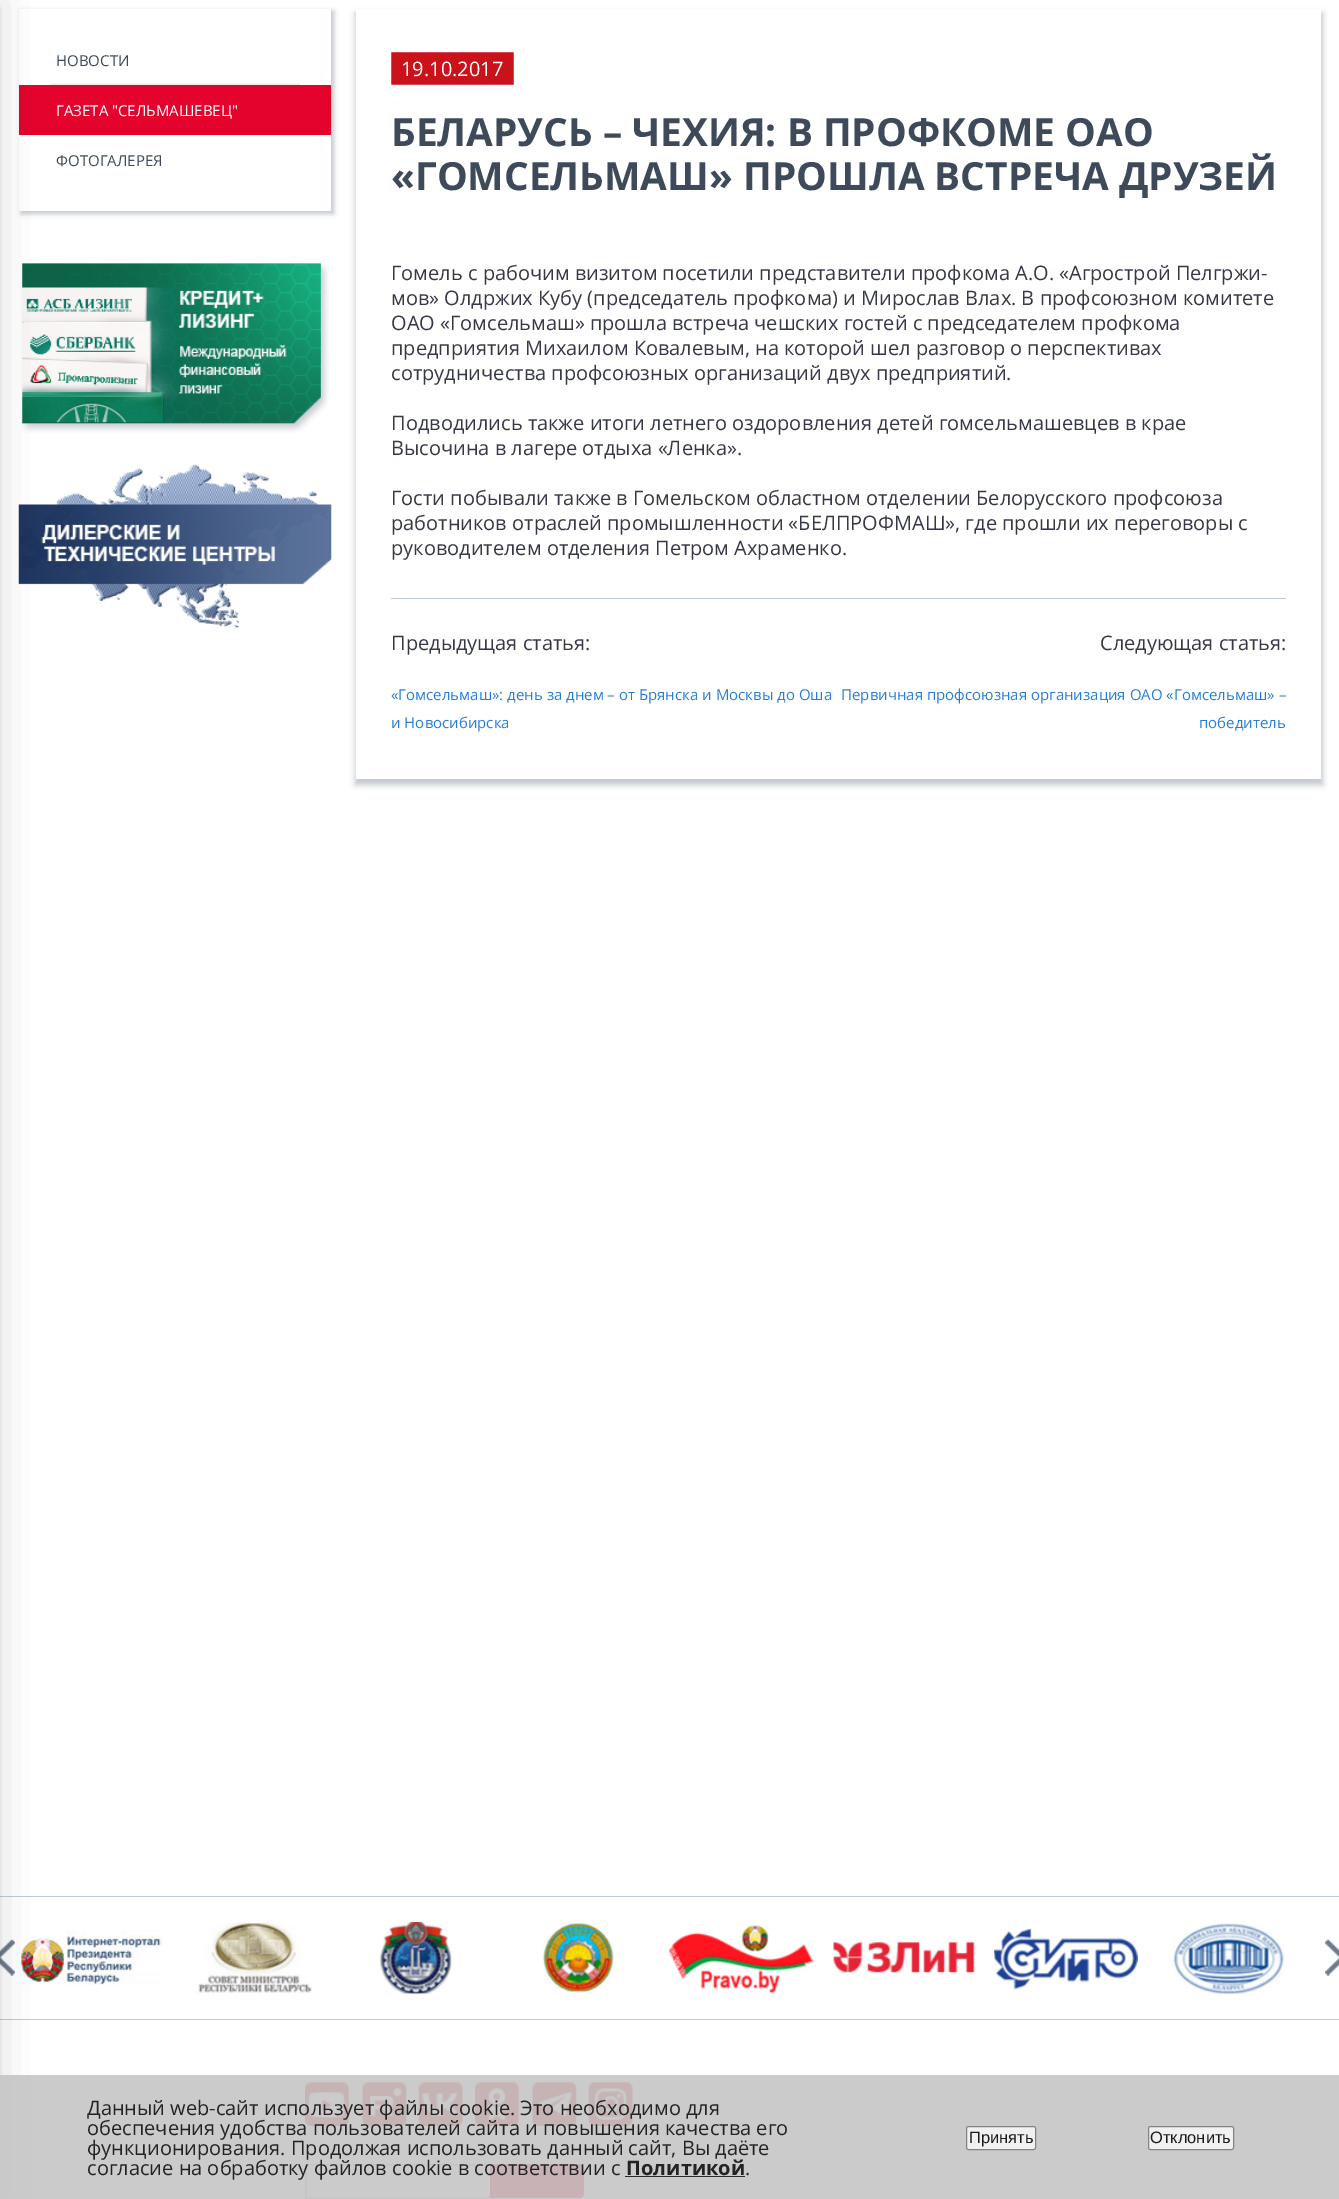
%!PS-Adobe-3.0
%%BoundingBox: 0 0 1339 2199
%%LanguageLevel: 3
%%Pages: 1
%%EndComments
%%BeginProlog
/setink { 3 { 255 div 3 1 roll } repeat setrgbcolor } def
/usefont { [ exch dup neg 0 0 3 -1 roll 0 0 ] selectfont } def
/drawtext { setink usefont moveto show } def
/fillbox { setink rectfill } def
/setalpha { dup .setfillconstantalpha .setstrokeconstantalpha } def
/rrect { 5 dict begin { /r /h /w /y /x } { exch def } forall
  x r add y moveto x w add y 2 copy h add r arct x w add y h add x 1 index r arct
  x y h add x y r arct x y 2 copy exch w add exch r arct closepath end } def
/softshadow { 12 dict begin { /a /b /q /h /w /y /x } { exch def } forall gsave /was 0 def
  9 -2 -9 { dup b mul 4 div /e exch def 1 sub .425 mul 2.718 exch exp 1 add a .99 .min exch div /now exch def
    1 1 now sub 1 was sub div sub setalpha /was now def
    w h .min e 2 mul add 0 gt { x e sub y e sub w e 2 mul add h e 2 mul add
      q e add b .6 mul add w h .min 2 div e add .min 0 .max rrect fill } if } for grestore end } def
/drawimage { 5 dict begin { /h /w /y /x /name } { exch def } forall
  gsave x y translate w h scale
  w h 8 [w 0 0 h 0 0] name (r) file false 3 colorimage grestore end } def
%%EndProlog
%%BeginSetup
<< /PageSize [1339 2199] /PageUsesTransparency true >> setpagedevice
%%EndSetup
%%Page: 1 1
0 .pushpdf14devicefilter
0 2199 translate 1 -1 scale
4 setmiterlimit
0 0 1339 2199 255 255 255 fillbox
gsave
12 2 moveto 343 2 lineto 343 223 lineto 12 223 lineto closepath 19 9 moveto 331 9 lineto 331 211 lineto 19 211 lineto closepath eoclip newpath
195 199 207 setink
21 11 313 203 0 2.5 1 softshadow
grestore
19 85 312 50 227 3 44 fillbox
(assets/img2.rgb) 21 263 308 170 drawimage
(assets/img3.rgb) 18 464 314 164 drawimage
0 1896 1339 1 193 201 217 fillbox
0 2019 1339 1 193 201 217 fillbox
(assets/img5.rgb) 0 1939 15 37 drawimage
(assets/img6.rgb) 21 1930 142 55 drawimage
0 0 0 setink
-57 4 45 2192 0 19 0.32 softshadow
(assets/img1.rgb) 50 83 250 2 drawimage
(НОВОСТИ) 56 66 /OpenSans-Regular 15 62 73 89 drawtext
(ГАЗЕТА "СЕЛЬМАШЕВЕЦ") 56 116 /OpenSans-Regular 15 255 255 255 drawtext
(ФОТОГАЛЕРЕЯ) 56 166 /OpenSans-Regular 15 62 73 89 drawtext
195 199 206 setink
355 13 968 772 0 3 1 softshadow
356 9 965 770 255 255 255 fillbox
(assets/img4.rgb) 391 52 123 33 drawimage
(19.10.2017) 401 76 /OpenSans-Regular 20 255 255 255 drawtext
(БЕЛАРУСЬ – ЧЕХИЯ: В ПРОФКОМЕ ОАО) 391 146 /OpenSans-Bold 38.75 62 73 89 drawtext
(«ГОМСЕЛЬМАШ» ПРОШЛА ВСТРЕЧА ДРУЗЕЙ) 391 190 /OpenSans-Bold 38.75 62 73 89 drawtext
(Гомель с рабочим визитом посетили представители профкома А.О. «Агрострой Пелгржи-) 391 280 /OpenSans-Regular 20 54 56 71 drawtext
(мов» Олдржих Кубу \(председатель профкома\) и Мирослав Влах. В профсоюзном комитете) 391 305 /OpenSans-Regular 20 54 56 71 drawtext
(ОАО «Гомсельмаш» прошла встреча чешских гостей с председателем профкома) 391 330 /OpenSans-Regular 20 54 56 71 drawtext
(предприятия Михаилом Ковалевым, на которой шел разговор о перспективах) 391 355 /OpenSans-Regular 20 54 56 71 drawtext
(сотрудничества профсоюзных организаций двух предприятий.) 391 380 /OpenSans-Regular 20 54 56 71 drawtext
(Подводились также итоги летнего оздоровления детей гомсельмашевцев в крае) 391 430 /OpenSans-Regular 20 54 56 71 drawtext
(Высочина в лагере отдыха «Ленка».) 391 455 /OpenSans-Regular 20 54 56 71 drawtext
(Гости побывали также в Гомельском областном отделении Белорусского профсоюза) 391 505 /OpenSans-Regular 20 54 56 71 drawtext
(работников отраслей промышленности «БЕЛПРОФМАШ», где прошли их переговоры с) 391 530 /OpenSans-Regular 20 54 56 71 drawtext
(руководителем отделения Петром Ахраменко.) 391 555 /OpenSans-Regular 20 54 56 71 drawtext
391 598 895 1 193 201 217 fillbox
(Предыдущая статья:) 391 650 /OpenSans-Regular 20 54 56 71 drawtext
(«Гомсельмаш»: день за днем – от Брянска и Москвы до Оша) 391 700 /OpenSans-Regular 15 40 126 215 drawtext
(и Новосибирска) 391 728 /OpenSans-Regular 15 40 126 215 drawtext
(Следующая статья:) 1100 650 /OpenSans-Regular 20 54 56 71 drawtext
(Первичная профсоюзная организация ОАО «Гомсельмаш» –) 841 700 /OpenSans-Regular 15 40 126 215 drawtext
(победитель) 1199 728 /OpenSans-Regular 15 40 126 215 drawtext
(assets/img7.rgb) 198 1922 114 71 drawimage
(assets/img8.rgb) 379 1922 73 72 drawimage
(assets/img9.rgb) 542 1923 72 70 drawimage
(assets/img10.rgb) 669 1925 144 69 drawimage
(assets/img11.rgb) 833 1942 142 31 drawimage
(assets/img12.rgb) 994 1928 144 62 drawimage
(assets/img13.rgb) 1173 1923 112 71 drawimage
(assets/img14.rgb) 1325 1939 14 37 drawimage
(assets/img15.rgb) 305 2082 44 44 drawimage
(assets/img16.rgb) 362 2082 45 44 drawimage
(assets/img17.rgb) 418 2082 45 44 drawimage
(assets/img18.rgb) 475 2082 44 44 drawimage
(assets/img19.rgb) 532 2082 45 44 drawimage
(assets/img20.rgb) 588 2082 45 44 drawimage
gsave
306 2165 270 31 rectclip
235 237 242 setink
182 2041 moveto 700 2041 lineto 700 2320 lineto 182 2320 lineto closepath 308 2166 moveto 578 2166 lineto 578 2198 lineto 308 2198 lineto closepath eofill
grestore
176 179 192 setink
305.5 2164.5 272 33 rectstroke
227 3 44 setink
490 2164 moveto 579 2164 lineto 582 2164 584 2166 584 2169 curveto 584 2193 lineto 584 2196 582 2198 579 2198 curveto 490 2198 lineto closepath fill
0.9 setalpha
0 2075 1339 124 197 197 197 fillbox
1 setalpha
(Данный web-сайт использует файлы cookie. Это необходимо для) 87 2115 /OpenSans-Regular 20 35 35 35 drawtext
(обеспечения удобства пользователей сайта и повышения качества его) 87 2135 /OpenSans-Regular 20 35 35 35 drawtext
(функционирования. Продолжая использовать данный сайт, Вы даёте) 87 2155 /OpenSans-Regular 20 35 35 35 drawtext
(согласие на обработку файлов cookie в соответствии с) 87 2175 /OpenSans-Regular 20 35 35 35 drawtext
(Политикой) 626 2175 /OpenSans-Bold 20 35 35 35 drawtext
625 2176 120 1 41 41 41 fillbox
(.) 745 2175 /OpenSans-Regular 20 41 41 41 drawtext
241 241 241 setink
966.5 2126.5 69 23 2 rrect gsave fill grestore
132 132 132 setink
stroke
(Принять) 969 2143 /LiberationSans-Regular 16.5 26 26 26 drawtext
241 241 241 setink
1148.5 2126.5 85 23 2 rrect gsave fill grestore
132 132 132 setink
stroke
(Отклонить) 1150 2143 /LiberationSans-Regular 16.5 26 26 26 drawtext
.poppdf14devicefilter showpage
%%EOF
